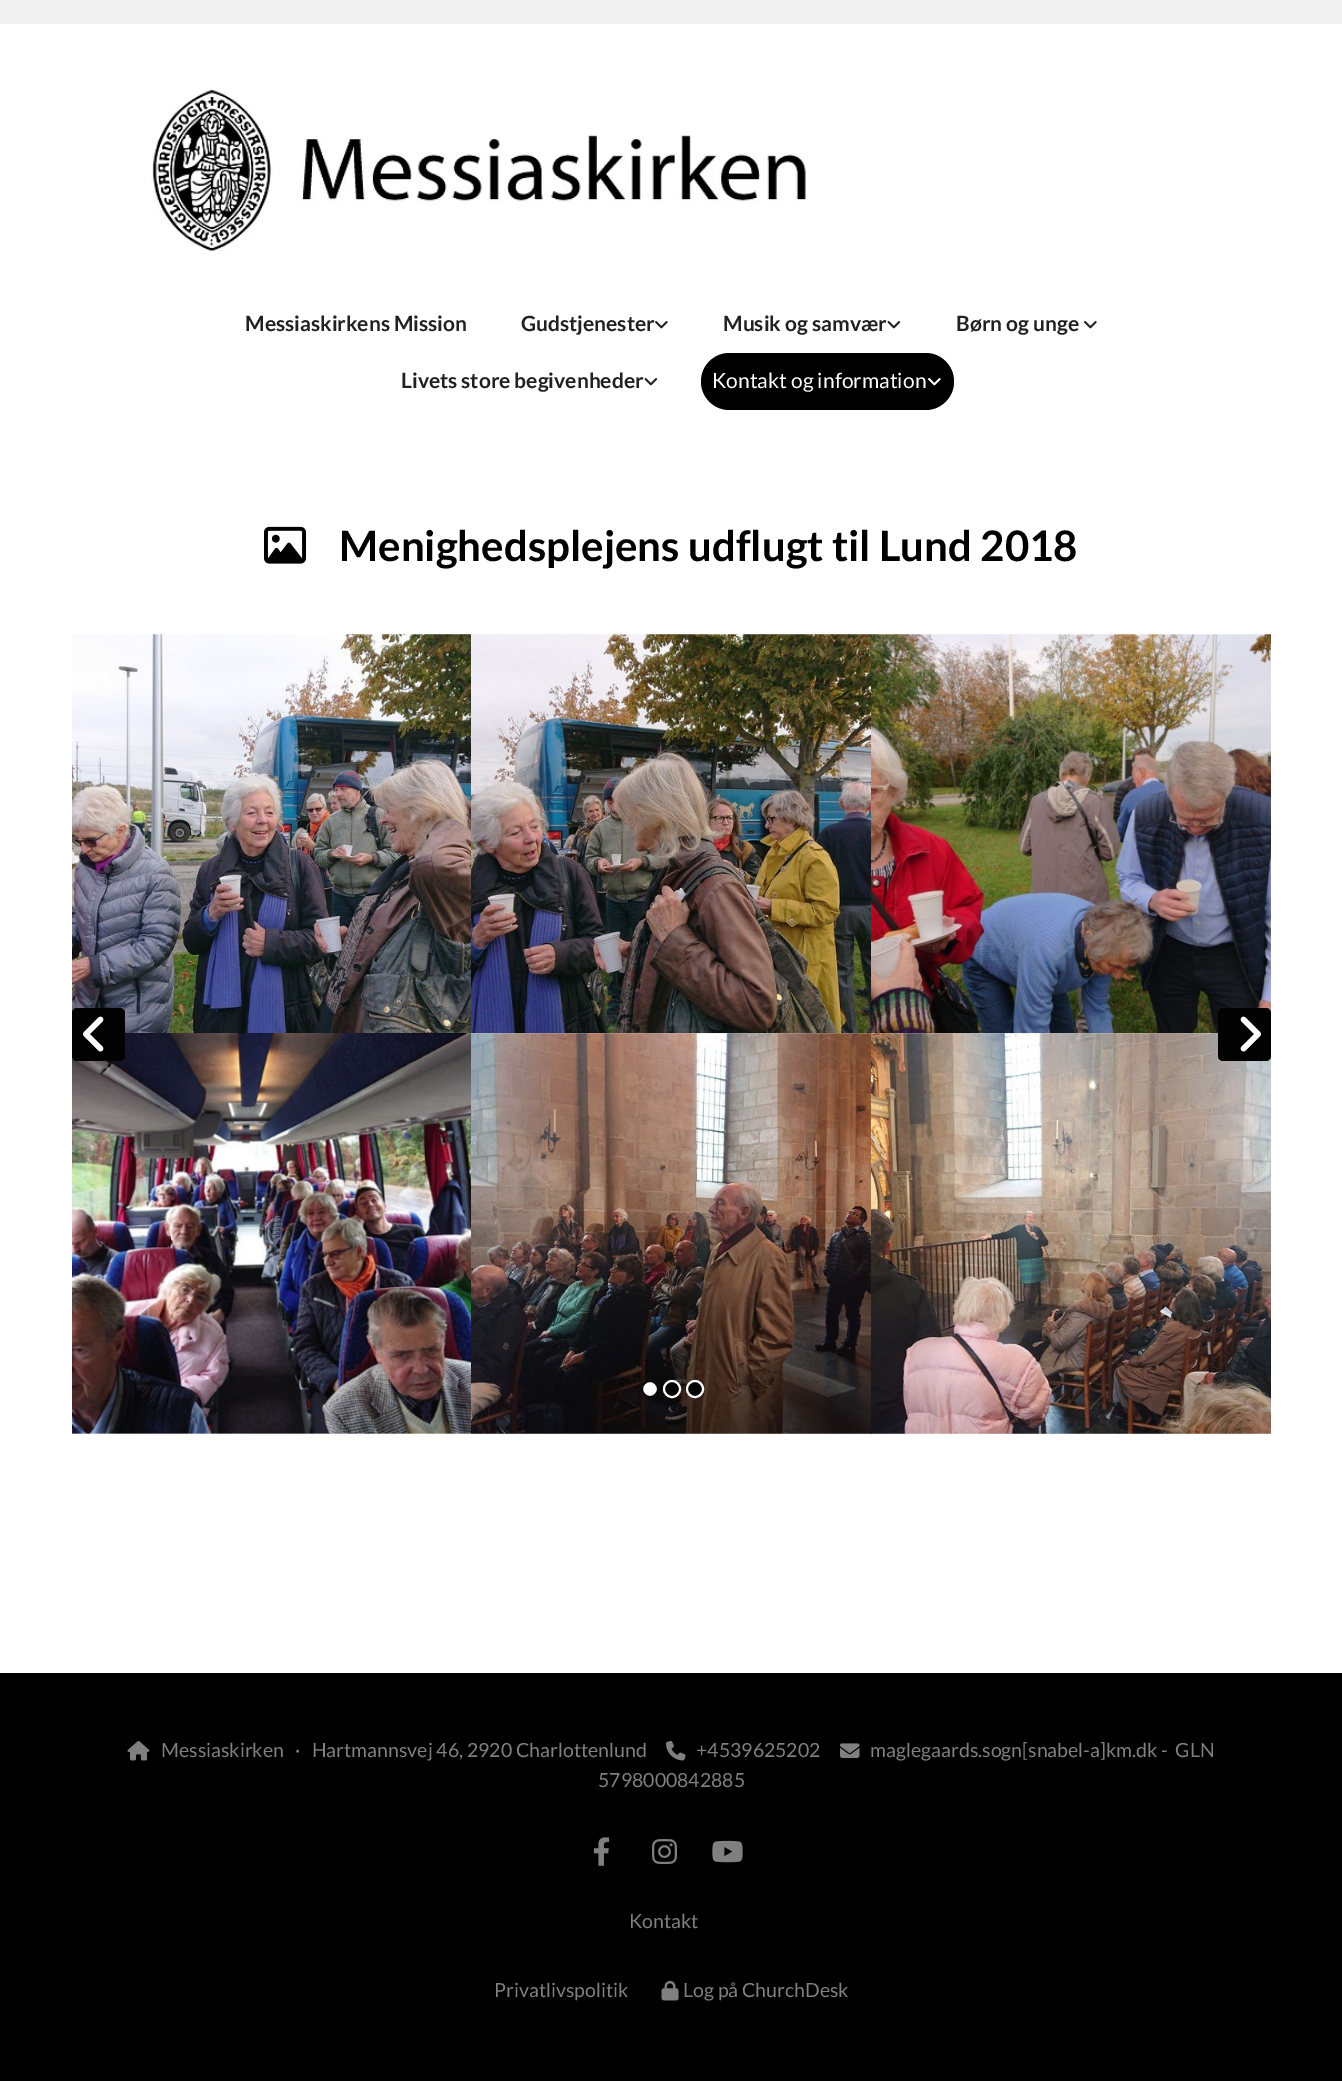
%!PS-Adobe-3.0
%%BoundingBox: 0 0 1342 2081
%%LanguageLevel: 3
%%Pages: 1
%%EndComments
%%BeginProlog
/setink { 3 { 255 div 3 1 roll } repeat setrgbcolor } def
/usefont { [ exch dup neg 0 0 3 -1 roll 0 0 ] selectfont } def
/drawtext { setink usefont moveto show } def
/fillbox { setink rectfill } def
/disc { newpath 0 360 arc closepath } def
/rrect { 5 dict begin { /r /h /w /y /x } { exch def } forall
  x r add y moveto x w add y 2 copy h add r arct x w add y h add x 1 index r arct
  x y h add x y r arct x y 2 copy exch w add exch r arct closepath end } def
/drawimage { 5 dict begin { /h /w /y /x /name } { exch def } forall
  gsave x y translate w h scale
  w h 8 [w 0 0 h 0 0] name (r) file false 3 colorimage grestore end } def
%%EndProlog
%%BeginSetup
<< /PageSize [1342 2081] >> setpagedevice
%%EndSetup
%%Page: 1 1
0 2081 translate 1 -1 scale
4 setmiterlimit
0 0 1342 2081 240 240 240 fillbox
0 24 1342 1649 255 255 255 fillbox
(assets/img1.rgb) 150 87 656 165 drawimage
(Messiaskirkens Mission) 245 331 /Lato-Bold 21 33 33 33 drawtext
(Gudstjenester) 521 331 /Lato-Bold 21 33 33 33 drawtext
(assets/img2.rgb) 655 321 13 8 drawimage
(Musik og samvær) 723 331 /Lato-Bold 21 33 33 33 drawtext
(assets/img3.rgb) 887 321 14 8 drawimage
(Børn og unge) 956 331 /Lato-Bold 21 33 33 33 drawtext
(assets/img2.rgb) 1084 321 13 8 drawimage
(Livets store begivenheder) 401 388 /Lato-Bold 21 33 33 33 drawtext
(assets/img3.rgb) 644 378 14 8 drawimage
0 0 0 setink
701 353 253 57 28.5 rrect fill
(Kontakt og information) 712 388 /Lato-Regular 21 255 255 255 drawtext
(assets/img4.rgb) 928 378 13 8 drawimage
(assets/img5.rgb) 264 526 42 38 drawimage
(Menighedsplejens udflugt til Lund 2018) 339 561 /Lato-Bold 42 0 0 0 drawtext
(assets/img6.rgb) 72 634 399 399 drawimage
(assets/img7.rgb) 471 634 401 400 drawimage
(assets/img8.rgb) 871 634 400 400 drawimage
(assets/img9.rgb) 72 1033 399 401 drawimage
(assets/img10.rgb) 471 1033 401 401 drawimage
(assets/img11.rgb) 871 1033 400 401 drawimage
3 3 3 setink
72 1008 53 53 5 rrect fill
(assets/img12.rgb) 83 1016 21 36 drawimage
1218 1008 53 53 5 rrect fill
(assets/img13.rgb) 1240 1016 21 36 drawimage
255 255 255 setink
650 1389 8 disc gsave fill grestore
10 10 10 setink
2 setlinewidth
stroke
3 3 3 setink
672 1389 8 disc gsave fill grestore
255 255 255 setink
stroke
3 3 3 setink
695 1389 8 disc gsave fill grestore
255 255 255 setink
stroke
0 1673 1342 408 0 0 0 fillbox
(assets/img14.rgb) 127 1741 23 20 drawimage
(Messiaskirken   ·   Hartmannsvej 46, 2920 Charlottenlund) 161 1757 /Lato-Regular 19.5 128 128 128 drawtext
(assets/img15.rgb) 666 1741 20 20 drawimage
(+4539625202) 696 1757 /Lato-Regular 19.5 128 128 128 drawtext
(assets/img16.rgb) 840 1743 20 15 drawimage
(maglegaards.sogn[snabel-a]km.dk -  GLN) 870 1757 /Lato-Regular 19.5 128 128 128 drawtext
(5798000842885) 598 1787 /Lato-Regular 19.5 128 128 128 drawtext
(assets/img17.rgb) 593 1837 17 29 drawimage
(assets/img18.rgb) 652 1839 25 25 drawimage
(assets/img19.rgb) 712 1840 31 23 drawimage
(Kontakt) 629 1928 /Lato-Regular 19.5 128 128 128 drawtext
(Privatlivspolitik) 494 1997 /Lato-Regular 19.5 128 128 128 drawtext
(assets/img20.rgb) 661 1981 18 20 drawimage
(Log på ChurchDesk) 683 1997 /Lato-Regular 19.5 128 128 128 drawtext
showpage
%%EOF
